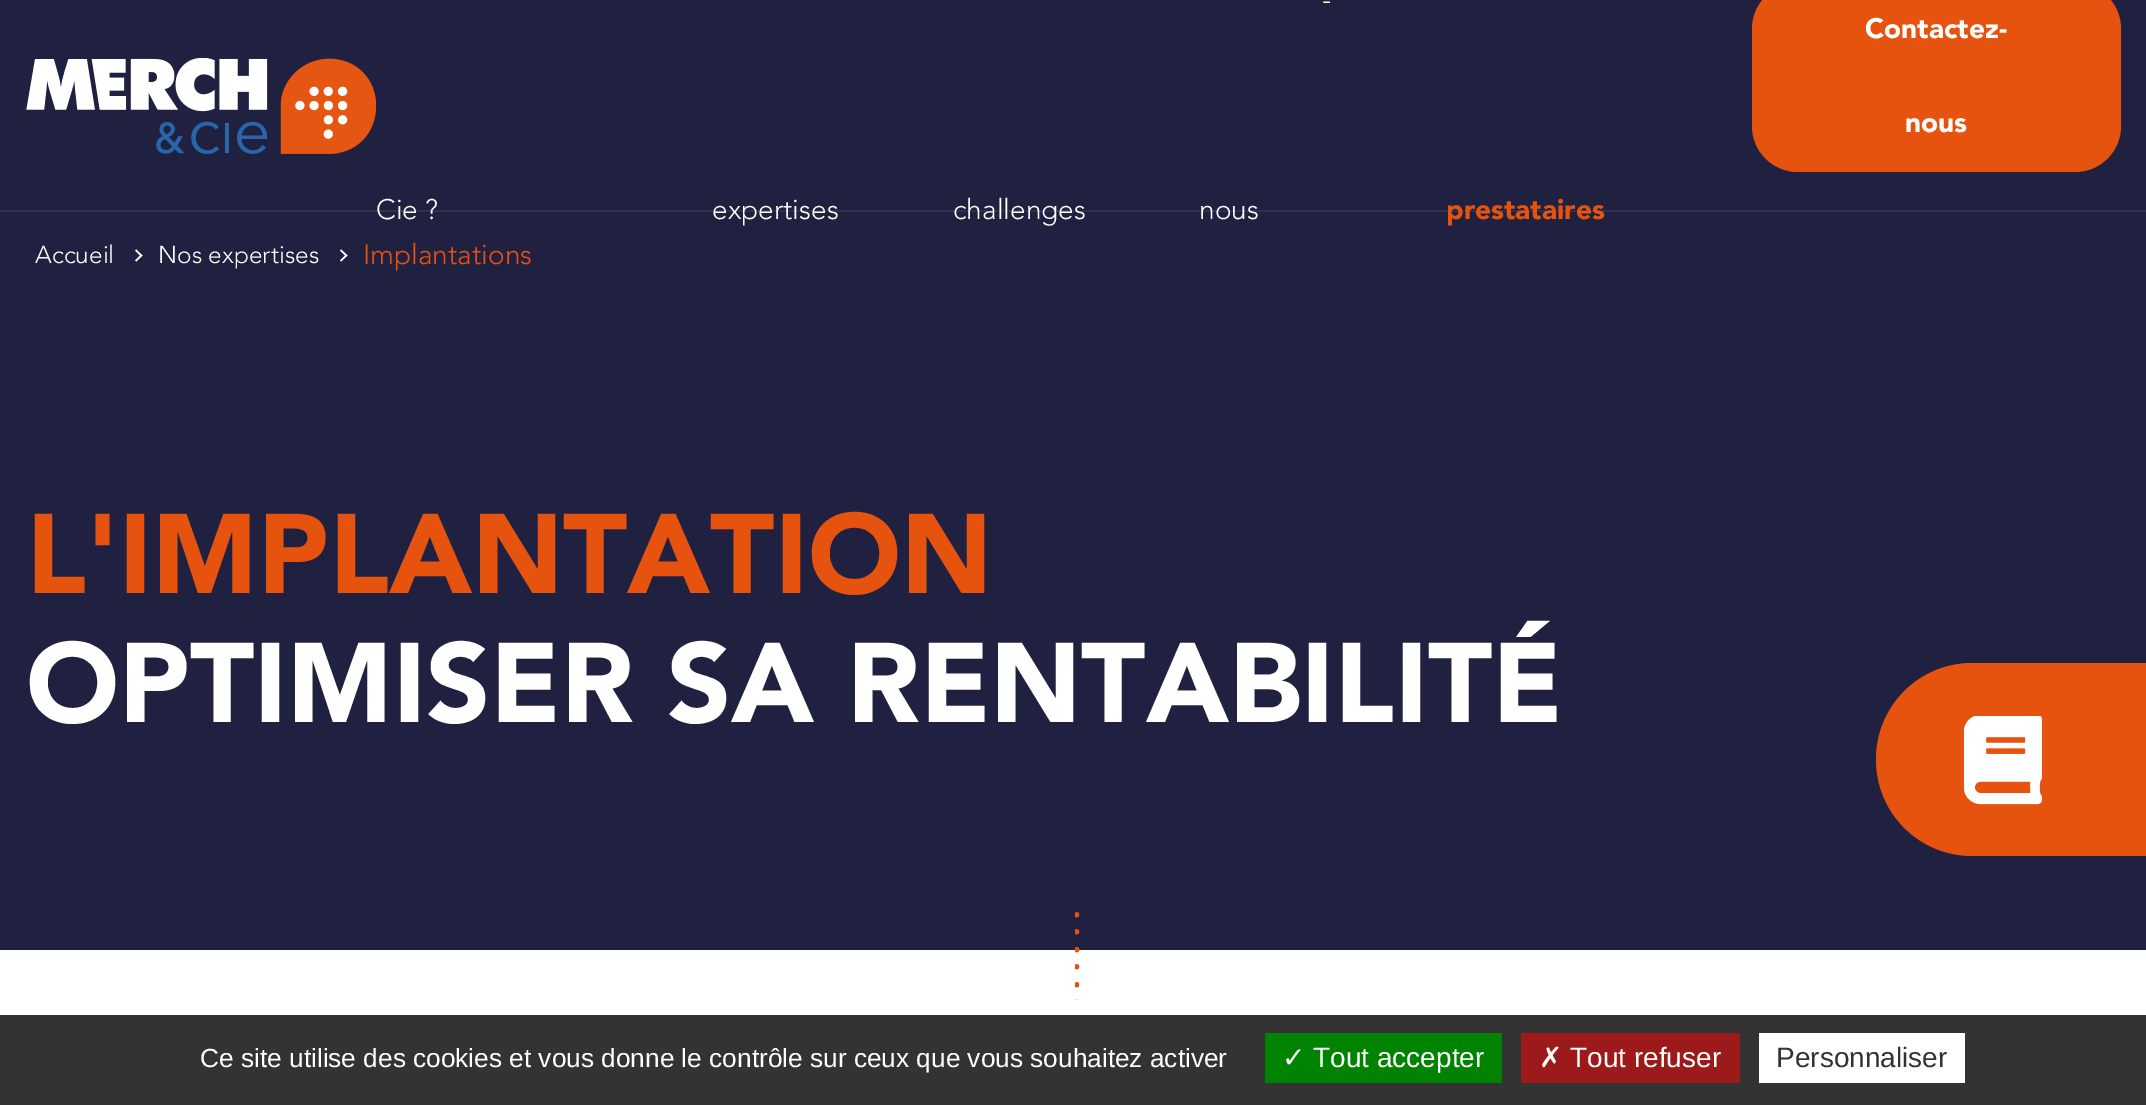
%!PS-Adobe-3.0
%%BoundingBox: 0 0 2146 1105
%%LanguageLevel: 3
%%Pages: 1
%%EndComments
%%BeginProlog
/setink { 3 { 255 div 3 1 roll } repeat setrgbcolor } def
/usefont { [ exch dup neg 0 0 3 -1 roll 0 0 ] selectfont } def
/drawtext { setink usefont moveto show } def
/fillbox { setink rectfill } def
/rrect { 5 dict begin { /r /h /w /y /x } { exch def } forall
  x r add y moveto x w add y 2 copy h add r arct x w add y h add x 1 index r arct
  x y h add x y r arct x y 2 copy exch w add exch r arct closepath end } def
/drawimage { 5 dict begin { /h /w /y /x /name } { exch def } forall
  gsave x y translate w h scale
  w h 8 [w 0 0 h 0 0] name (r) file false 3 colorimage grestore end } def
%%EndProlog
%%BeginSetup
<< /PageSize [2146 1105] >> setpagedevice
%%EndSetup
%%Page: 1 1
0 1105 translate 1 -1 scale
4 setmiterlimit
0 0 2146 1105 255 255 255 fillbox
0 0 2146 210 32 32 65 fillbox
(assets/img1.rgb) 26 58 350 96 drawimage
(-) 1322 9 /Avenir-Light 28 255 255 255 drawtext
0 210 2146 2 48 48 78 fillbox
0 212 2146 738 32 32 65 fillbox
(nous) 1199 219 /Avenir-Light 28 255 255 255 drawtext
229 83 15 setink
1752 -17 369 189 46 rrect fill
(Contactez-) 1865 38 /Avenir-Black 28 255 255 255 drawtext
(nous) 1905 132 /Avenir-Black 28 255 255 255 drawtext
(Cie ?) 376 219 /Avenir-Light 28 255 255 255 drawtext
(expertises) 712 219 /Avenir-Light 28 255 255 255 drawtext
(challenges) 953 219 /Avenir-Light 28 255 255 255 drawtext
(prestataires) 1446 219 /Avenir-Black 28 229 83 15 drawtext
(Accueil) 35 263 /Avenir-Light 24.5 255 255 255 drawtext
136.5 249.5 moveto 142.5 255.5 lineto 141 256.5 lineto 135 250.5 lineto closepath fill
141 254.5 moveto 142.5 255.5 lineto 136.5 261.5 lineto 135 260.5 lineto closepath fill
(Nos expertises) 158 263 /Avenir-Light 24.5 255 255 255 drawtext
341 249.5 moveto 347.5 255.5 lineto 346 256.5 lineto 340 250.5 lineto closepath fill
346 254.5 moveto 347.5 255.5 lineto 341 261.5 lineto 340 260.5 lineto closepath fill
(Implantations) 363 264 /Avenir-Light 28 229 83 15 drawtext
(L'IMPLANTATION) 26 593 /Avenir-Black 112 229 83 15 drawtext
(OPTIMISER SA RENTABILITÉ) 26 722 /Avenir-Black 112 255 255 255 drawtext
(assets/img2.rgb) 1075 912 5 88 drawimage
229 83 15 setink
1972.5 663 moveto 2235 663 lineto 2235 856 lineto 1972.5 856 lineto 1919 856 1876 813 1876 759.5 curveto 1876 706 1919 663 1972.5 663 curveto closepath fill
(assets/img3.rgb) 1964 716 78 89 drawimage
0 1015 2146 90 51 51 51 fillbox
(Ce site utilise des cookies et vous donne le contrôle sur ceux que vous souhaitez activer) 200 1067 /LiberationSans-Regular 26.25 255 255 255 drawtext
1265 1033 237 50 0 131 0 fillbox
(✓) 1282 1067 /DejaVuSans-Regular 28 255 255 255 drawtext
(Tout accepter) 1313 1067 /LiberationSans-Regular 28 255 255 255 drawtext
1521 1033 219 50 156 26 26 fillbox
(✗) 1539 1067 /DejaVuSans-Regular 28 255 255 255 drawtext
(Tout refuser) 1570 1067 /LiberationSans-Regular 28 255 255 255 drawtext
1759 1033 206 50 255 255 255 fillbox
(Personnaliser) 1776 1067 /LiberationSans-Regular 28 51 51 51 drawtext
showpage
%%EOF
